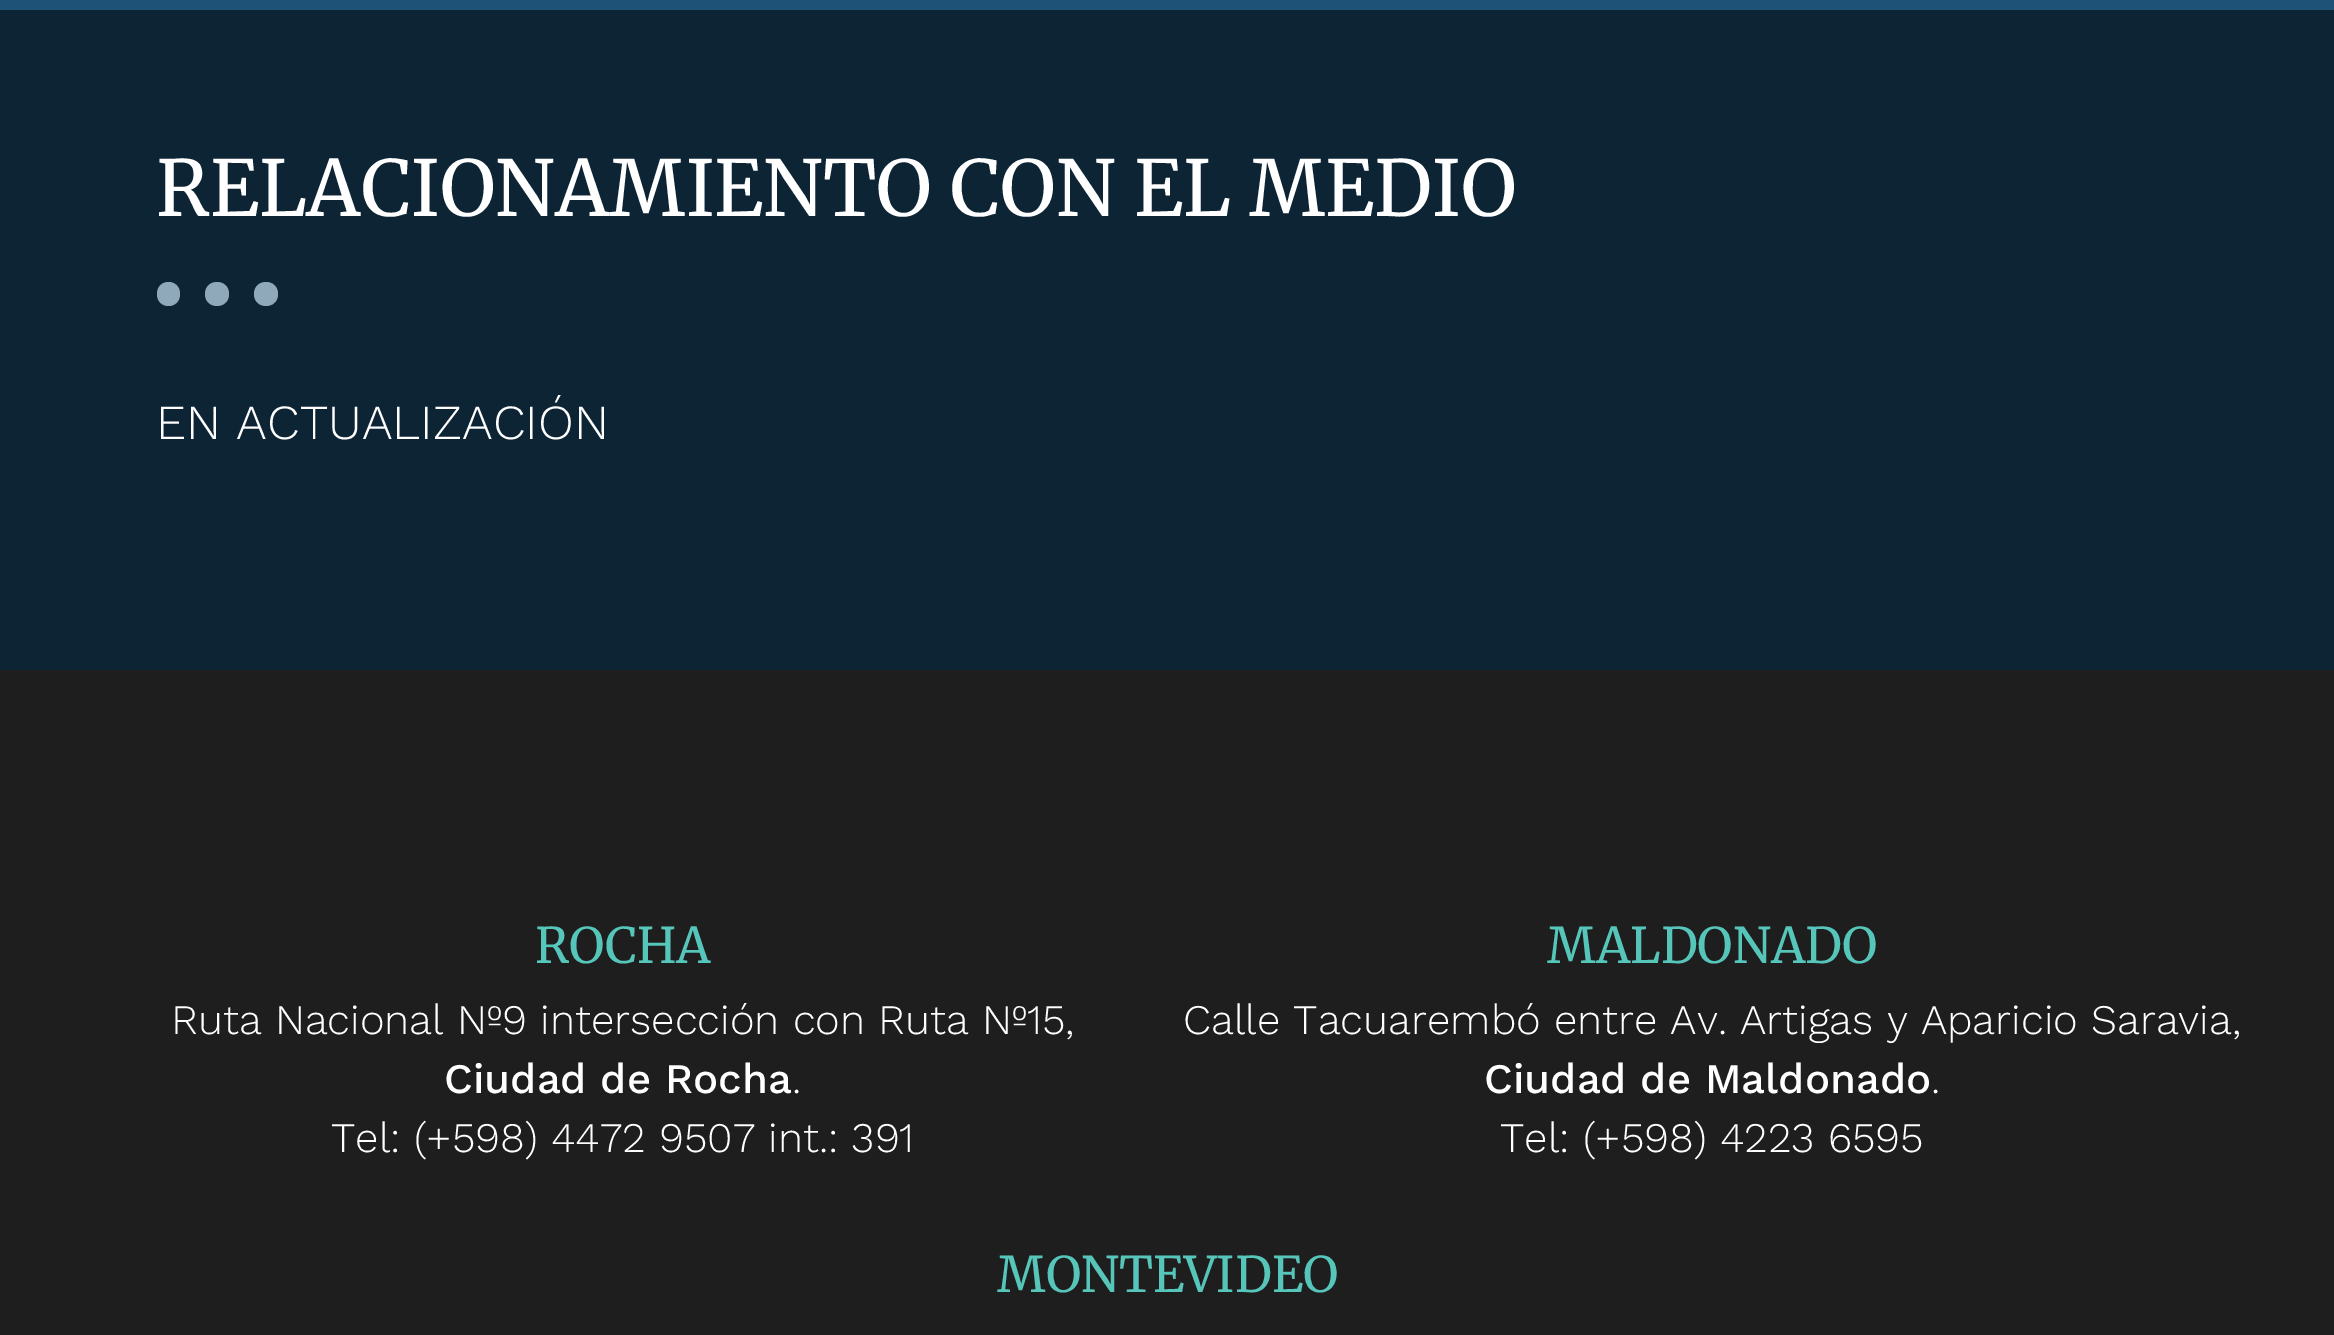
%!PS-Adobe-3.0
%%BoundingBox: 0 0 2334 1335
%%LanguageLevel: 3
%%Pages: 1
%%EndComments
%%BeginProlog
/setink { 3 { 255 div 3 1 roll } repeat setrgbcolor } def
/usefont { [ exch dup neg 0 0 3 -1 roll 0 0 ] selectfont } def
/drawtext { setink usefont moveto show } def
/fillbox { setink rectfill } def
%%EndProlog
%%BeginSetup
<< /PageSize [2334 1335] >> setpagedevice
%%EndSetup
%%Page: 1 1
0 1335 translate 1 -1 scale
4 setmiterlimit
0 0 2334 1335 30 82 119 fillbox
0 10 2334 660 13 36 53 fillbox
(RELACIONAMIENTO CON EL MEDIO) 156 216 /Merriweather-Regular 77 255 255 255 drawtext
143 169 187 setink
180 294 moveto 180 278 157 278 157 294 curveto 157 310 180 310 180 294 curveto closepath 229 294 moveto 229 278 205 278 205 294 curveto 205 310 229 310 229 294 curveto closepath 278 294 moveto 278 278 254 278 254 294 curveto 254 310 278 310 278 294 curveto closepath fill
(EN ACTUALIZACIÓN) 156 439 /WorkSans-Light 49 255 255 255 drawtext
0 670 2334 665 30 30 30 fillbox
(ROCHA) 535 963 /Merriweather-Regular 49 87 198 186 drawtext
(Ruta Nacional Nº9 intersección con Ruta Nº15,) 171 1034 /WorkSans-Light 42 255 255 255 drawtext
(Ciudad de Rocha) 444 1093 /WorkSans-Medium 42 255 255 255 drawtext
(.) 792 1093 /WorkSans-Light 42 255 255 255 drawtext
(Tel: \(+598\) 4472 9507 int.: 391) 331 1152 /WorkSans-Light 42 255 255 255 drawtext
(MALDONADO) 1547 963 /Merriweather-Regular 49 87 198 186 drawtext
(Calle Tacuarembó entre Av. Artigas y Aparicio Saravia,) 1183 1034 /WorkSans-Light 42 255 255 255 drawtext
(Ciudad de Maldonado) 1484 1093 /WorkSans-Medium 42 255 255 255 drawtext
(.) 1931 1093 /WorkSans-Light 42 255 255 255 drawtext
(Tel: \(+598\) 4223 6595) 1500 1152 /WorkSans-Light 42 255 255 255 drawtext
(MONTEVIDEO) 997 1292 /Merriweather-Regular 49 87 198 186 drawtext
showpage
%%EOF
